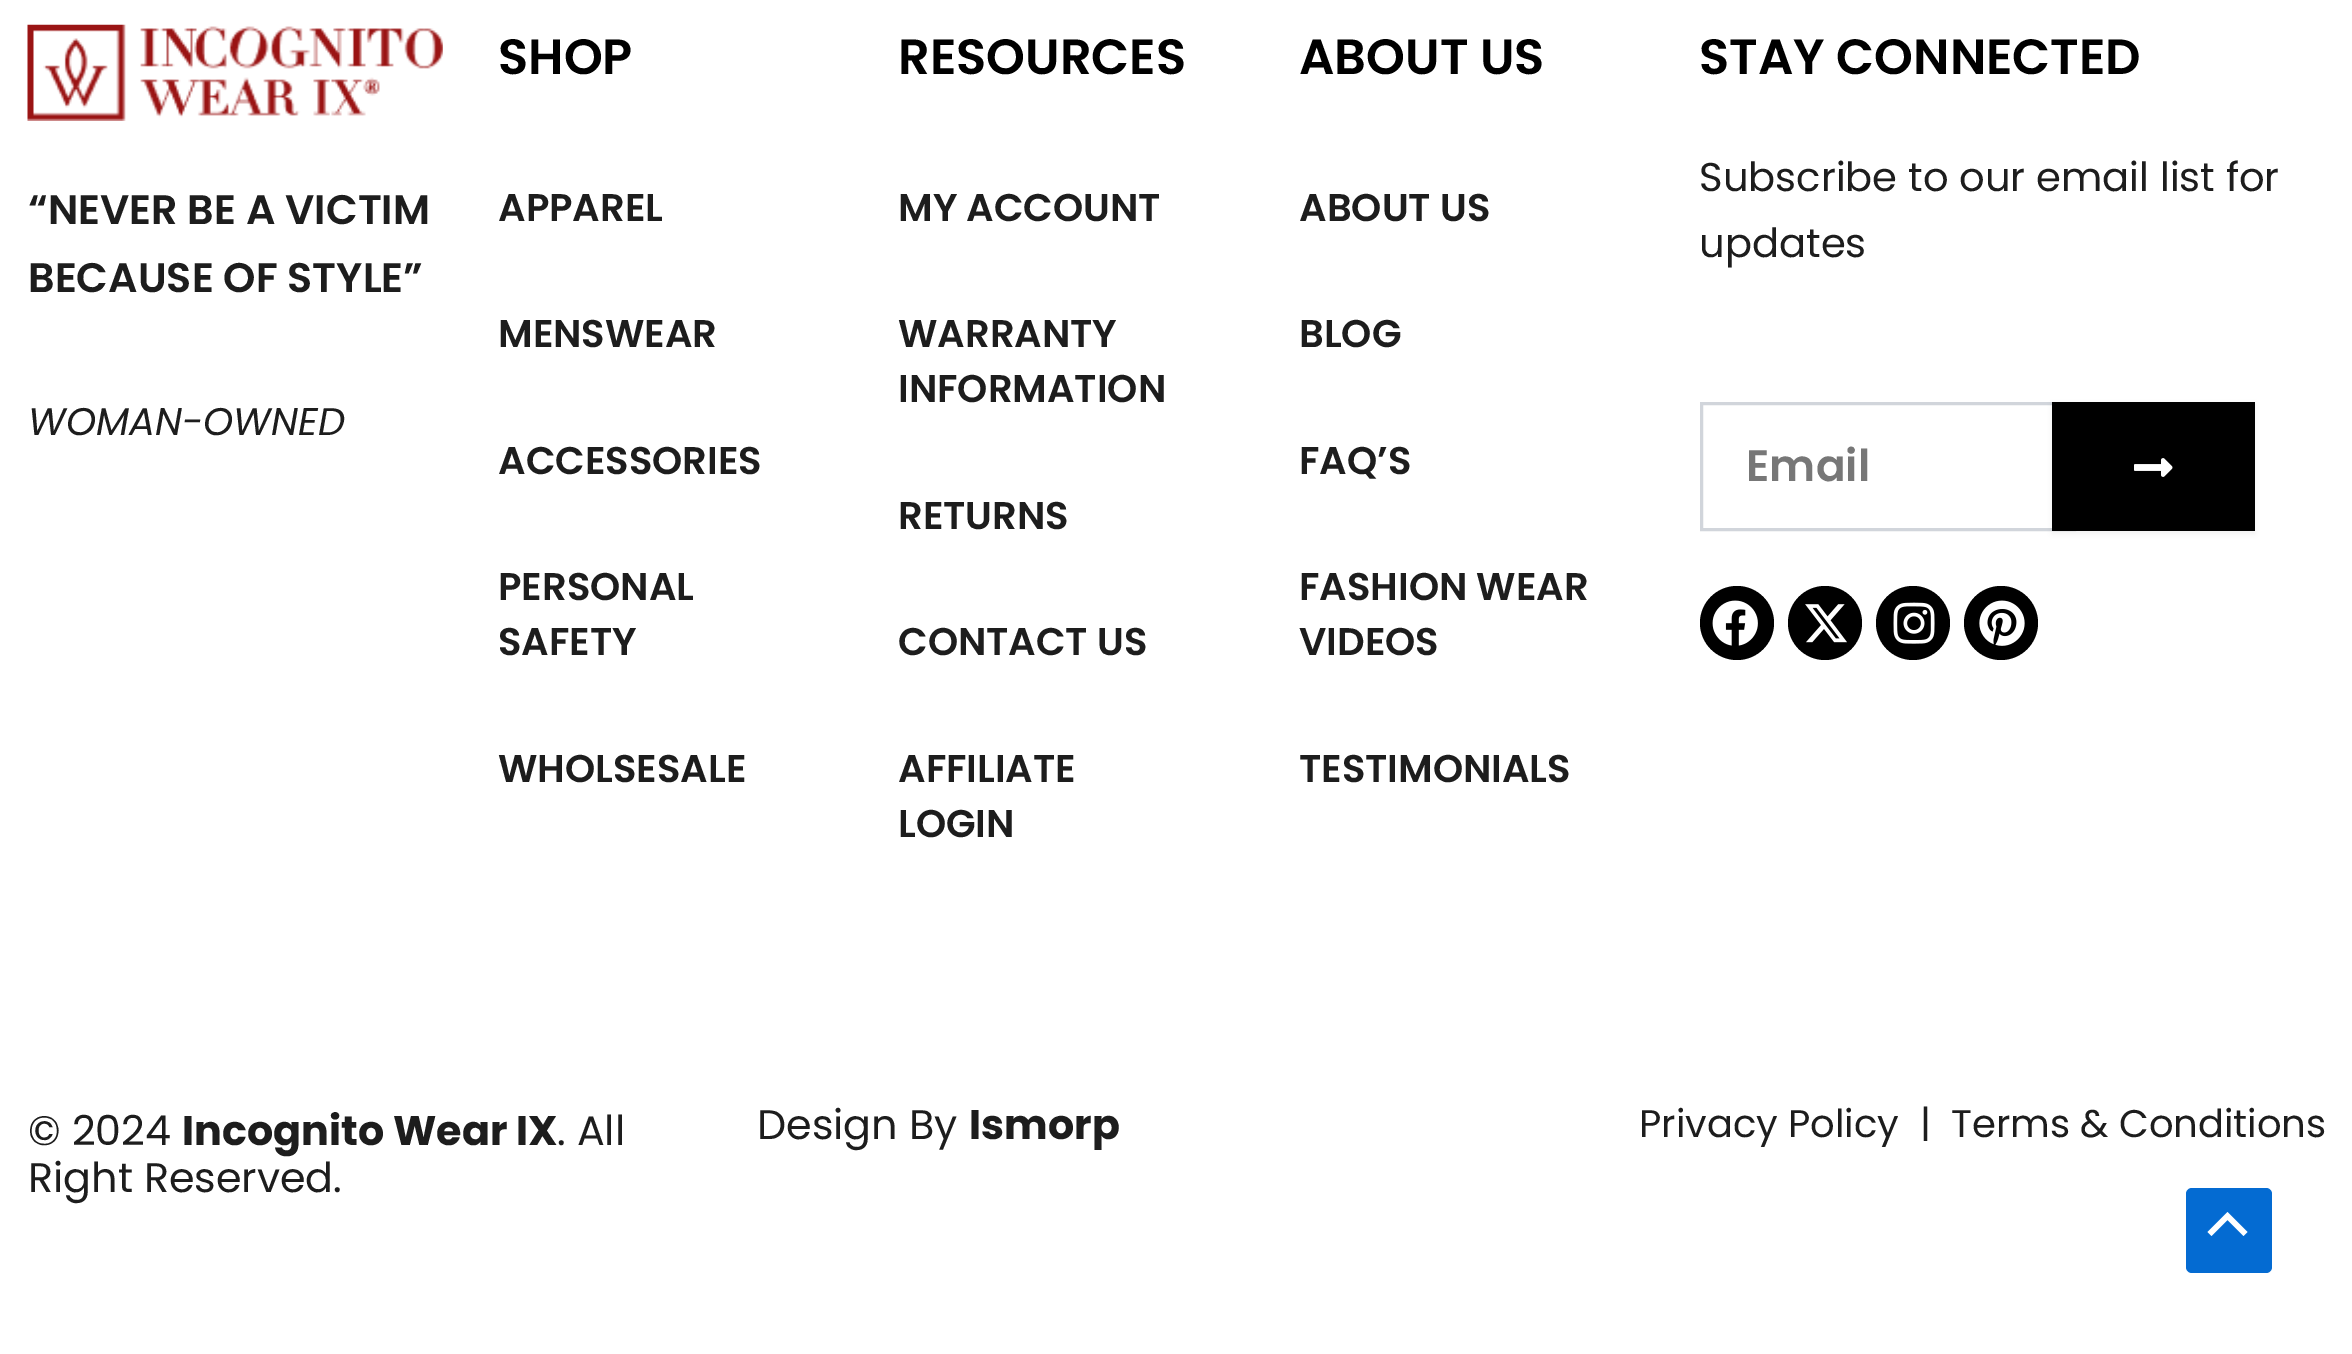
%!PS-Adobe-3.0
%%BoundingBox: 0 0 2352 1354
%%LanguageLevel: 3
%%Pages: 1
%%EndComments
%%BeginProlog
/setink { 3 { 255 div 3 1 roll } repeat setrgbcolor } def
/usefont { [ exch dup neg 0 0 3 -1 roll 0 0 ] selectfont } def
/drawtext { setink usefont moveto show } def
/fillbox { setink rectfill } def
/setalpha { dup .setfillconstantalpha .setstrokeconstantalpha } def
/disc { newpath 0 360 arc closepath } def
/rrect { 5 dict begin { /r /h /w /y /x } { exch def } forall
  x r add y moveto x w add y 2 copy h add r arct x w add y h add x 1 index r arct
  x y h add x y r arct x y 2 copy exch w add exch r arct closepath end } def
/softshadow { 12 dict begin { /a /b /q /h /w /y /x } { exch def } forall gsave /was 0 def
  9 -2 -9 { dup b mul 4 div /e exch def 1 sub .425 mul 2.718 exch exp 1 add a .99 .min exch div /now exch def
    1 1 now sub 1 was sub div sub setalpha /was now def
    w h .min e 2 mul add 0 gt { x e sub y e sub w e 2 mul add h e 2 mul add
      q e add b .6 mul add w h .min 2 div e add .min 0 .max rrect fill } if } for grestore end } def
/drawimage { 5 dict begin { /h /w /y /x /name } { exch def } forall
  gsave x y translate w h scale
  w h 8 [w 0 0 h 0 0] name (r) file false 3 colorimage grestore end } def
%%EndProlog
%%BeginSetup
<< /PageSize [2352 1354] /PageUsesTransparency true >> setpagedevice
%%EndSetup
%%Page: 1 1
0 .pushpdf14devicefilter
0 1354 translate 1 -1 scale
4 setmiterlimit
0 0 2352 1354 255 255 255 fillbox
(assets/img1.rgb) 27 24 416 97 drawimage
(“NEVER BE A VICTIM) 28 224 /Poppins-SemiBold 41.25 29 29 29 drawtext
(BECAUSE OF STYLE”) 28 292 /Poppins-SemiBold 41.25 29 29 29 drawtext
(WOMAN-OWNED) 28 435 /Poppins-Italic 38.5 29 29 29 drawtext
(SHOP) 498 74 /Poppins-SemiBold 49.5 0 0 0 drawtext
(APPAREL) 498 221 /Poppins-SemiBold 38.5 29 29 29 drawtext
(MENSWEAR) 498 347 /Poppins-SemiBold 38.5 29 29 29 drawtext
(ACCESSORIES) 498 474 /Poppins-SemiBold 38.5 29 29 29 drawtext
(PERSONAL) 498 600 /Poppins-SemiBold 38.5 29 29 29 drawtext
(SAFETY) 498 655 /Poppins-SemiBold 38.5 29 29 29 drawtext
(WHOLSESALE) 498 782 /Poppins-SemiBold 38.5 29 29 29 drawtext
(RESOURCES) 898 74 /Poppins-SemiBold 49.5 0 0 0 drawtext
(MY ACCOUNT) 898 221 /Poppins-SemiBold 38.5 29 29 29 drawtext
(WARRANTY) 898 347 /Poppins-SemiBold 38.5 29 29 29 drawtext
(INFORMATION) 898 402 /Poppins-SemiBold 38.5 29 29 29 drawtext
(RETURNS) 898 529 /Poppins-SemiBold 38.5 29 29 29 drawtext
(CONTACT US) 898 655 /Poppins-SemiBold 38.5 29 29 29 drawtext
(AFFILIATE) 898 782 /Poppins-SemiBold 38.5 29 29 29 drawtext
(LOGIN) 898 837 /Poppins-SemiBold 38.5 29 29 29 drawtext
(ABOUT US) 1299 74 /Poppins-SemiBold 49.5 0 0 0 drawtext
(ABOUT US) 1299 221 /Poppins-SemiBold 38.5 29 29 29 drawtext
(BLOG) 1299 347 /Poppins-SemiBold 38.5 29 29 29 drawtext
(FAQ’S) 1299 474 /Poppins-SemiBold 38.5 29 29 29 drawtext
(FASHION WEAR) 1299 600 /Poppins-SemiBold 38.5 29 29 29 drawtext
(VIDEOS) 1299 655 /Poppins-SemiBold 38.5 29 29 29 drawtext
(TESTIMONIALS) 1299 782 /Poppins-SemiBold 38.5 29 29 29 drawtext
(STAY CONNECTED) 1699 74 /Poppins-SemiBold 49.5 0 0 0 drawtext
(Subscribe to our email list for) 1699 191 /Poppins-Regular 40.1 29 29 29 drawtext
(updates) 1699 257 /Poppins-Regular 40.1 29 29 29 drawtext
209 213 219 setink
3 setlinewidth
1701.5 403.5 373 126 rectstroke
(Email) 1746 481 /Poppins-SemiBold 44 119 119 119 drawtext
0 0 0 setink
2052 404 203 130 0 3 0.05 softshadow
2052 402 203 129 0 0 0 fillbox
(assets/img2.rgb) 2134 458 39 19 drawimage
1737 623 37 disc fill
(assets/img3.rgb) 1712 600 46 46 drawimage
1825 623 37 disc fill
(assets/img4.rgb) 1805 604 42 39 drawimage
1913 623 37 disc fill
(assets/img5.rgb) 1893 602 42 42 drawimage
2001 623 37 disc fill
(assets/img6.rgb) 1979 600 46 46 drawimage
(© 2024) 28 1145 /Poppins-Regular 41.25 29 29 29 drawtext
(Incognito Wear IX) 182 1145 /Poppins-Bold 41.25 29 29 29 drawtext
(. All) 557 1145 /Poppins-Regular 41.25 29 29 29 drawtext
(Right Reserved.) 28 1192 /Poppins-Regular 41.25 29 29 29 drawtext
(Design By) 757 1139 /Poppins-Regular 41.25 29 29 29 drawtext
(Ismorp) 969 1139 /Poppins-Bold 41.25 29 29 29 drawtext
(Privacy Policy  |) 1639 1137 /Poppins-Regular 38.5 29 29 29 drawtext
(Terms & Conditions) 1951 1137 /Poppins-Regular 38.5 29 29 29 drawtext
4 107 210 setink
2186 1188 86 85 6 rrect fill
255 255 255 setink
2247.5 1232 moveto 2227.5 1212 lineto 2207.5 1232 lineto 2211.5 1236 lineto 2227.5 1220 lineto 2243.5 1236 lineto closepath fill
.poppdf14devicefilter showpage
%%EOF
